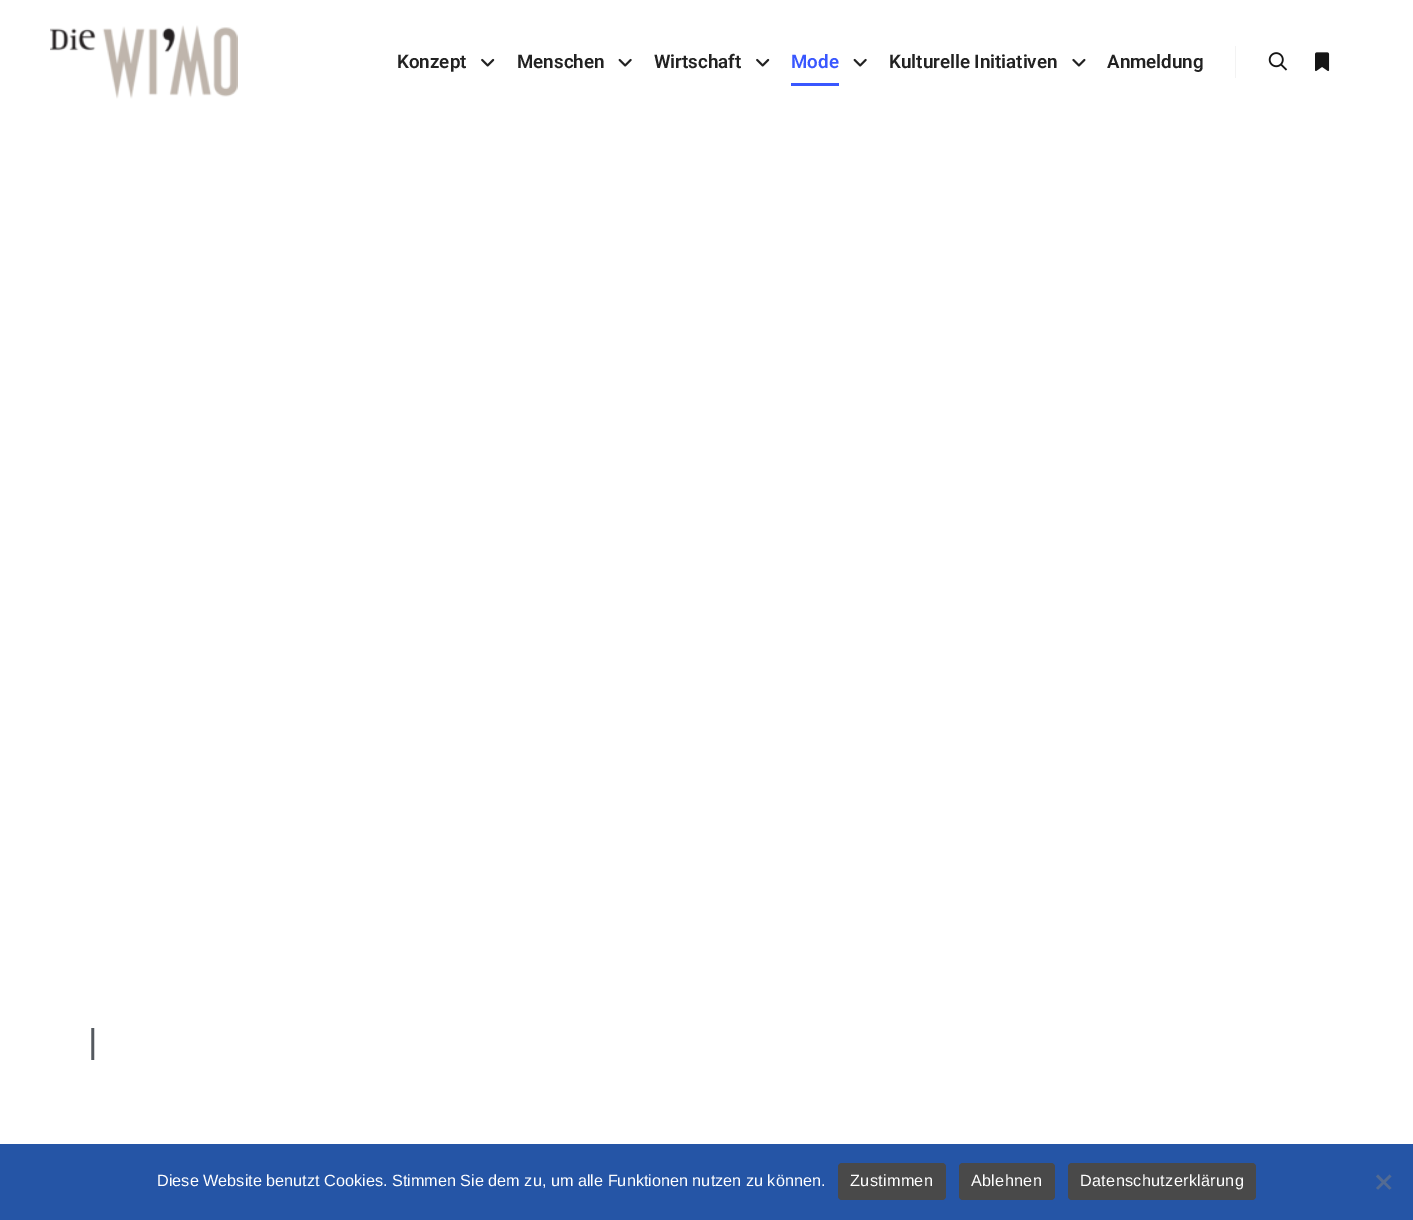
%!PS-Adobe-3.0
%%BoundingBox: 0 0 1413 1220
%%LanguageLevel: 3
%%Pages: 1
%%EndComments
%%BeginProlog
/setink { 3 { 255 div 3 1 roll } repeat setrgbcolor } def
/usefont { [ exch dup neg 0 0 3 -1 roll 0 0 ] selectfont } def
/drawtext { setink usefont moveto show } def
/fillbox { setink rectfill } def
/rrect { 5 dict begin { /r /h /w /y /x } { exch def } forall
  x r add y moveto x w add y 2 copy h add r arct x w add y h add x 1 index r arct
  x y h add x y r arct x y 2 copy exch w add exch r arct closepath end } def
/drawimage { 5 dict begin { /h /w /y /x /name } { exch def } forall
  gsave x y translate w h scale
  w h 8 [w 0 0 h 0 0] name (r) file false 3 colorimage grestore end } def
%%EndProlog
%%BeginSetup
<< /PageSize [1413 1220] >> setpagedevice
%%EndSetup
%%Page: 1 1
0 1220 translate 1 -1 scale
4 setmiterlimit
0 0 1413 1220 255 255 255 fillbox
(assets/img1.rgb) 50 25 188 74 drawimage
(Konzept) 397 68 /Roboto-SemiBold 18.75 34 34 34 drawtext
(assets/img2.rgb) 481 58 14 9 drawimage
(Menschen) 517 68 /Roboto-SemiBold 18.75 34 34 34 drawtext
(assets/img3.rgb) 618 58 14 9 drawimage
(Wirtschaft) 654 68 /Roboto-SemiBold 18.75 34 34 34 drawtext
(assets/img2.rgb) 756 58 14 9 drawimage
(Mode) 791 68 /Roboto-SemiBold 18.75 57 87 255 drawtext
791 83 48 3 57 87 255 fillbox
(assets/img3.rgb) 853 58 14 9 drawimage
(Kulturelle Initiativen) 889 68 /Roboto-SemiBold 18.75 34 34 34 drawtext
(assets/img4.rgb) 1072 58 14 9 drawimage
(Anmeldung) 1107 68 /Roboto-SemiBold 18.75 34 34 34 drawtext
1235 46 1 32 243 243 243 fillbox
(assets/img5.rgb) 1268 52 20 19 drawimage
(assets/img6.rgb) 1315 52 15 20 drawimage
(|) 88 1055 /Roboto-SemiBold 38 84 89 95 drawtext
0 1144 1413 76 37 85 166 fillbox
(Diese Website benutzt Cookies. Stimmen Sie dem zu, um alle Funktionen nutzen zu können.) 157 1186 /LiberationSans-Regular 16.25 255 255 255 drawtext
73 73 73 setink
838 1163 108 37 4 rrect fill
255 255 255 setink
850 1186 moveto 0.3 0 (Zustimmen) ashow
73 73 73 setink
959 1163 96 37 4 rrect fill
255 255 255 setink
971 1186 moveto 0.3 0 (Ablehnen) ashow
73 73 73 setink
1068 1163 188 37 4 rrect fill
255 255 255 setink
1080 1186 moveto 0.3 0 (Datenschutzerklärung) ashow
83 107 147 setink
1389.5 1174.5 moveto 1391.5 1176.5 lineto 1378 1189.5 lineto 1376 1188 lineto closepath fill
1376 1176.5 moveto 1378 1174.5 lineto 1391.5 1188 lineto 1389.5 1189.5 lineto closepath fill
showpage
%%EOF
